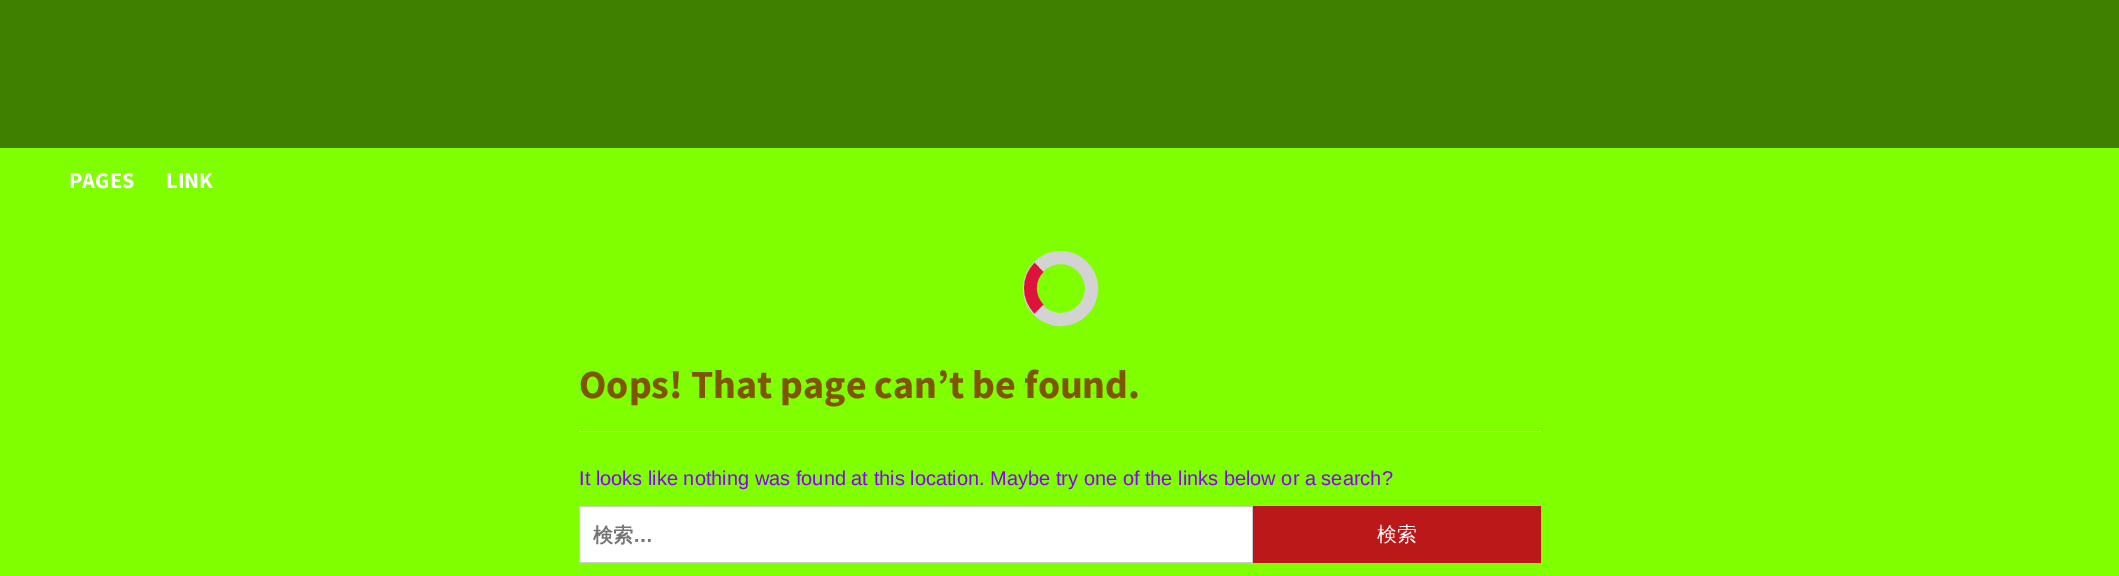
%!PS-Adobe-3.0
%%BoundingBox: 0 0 2119 576
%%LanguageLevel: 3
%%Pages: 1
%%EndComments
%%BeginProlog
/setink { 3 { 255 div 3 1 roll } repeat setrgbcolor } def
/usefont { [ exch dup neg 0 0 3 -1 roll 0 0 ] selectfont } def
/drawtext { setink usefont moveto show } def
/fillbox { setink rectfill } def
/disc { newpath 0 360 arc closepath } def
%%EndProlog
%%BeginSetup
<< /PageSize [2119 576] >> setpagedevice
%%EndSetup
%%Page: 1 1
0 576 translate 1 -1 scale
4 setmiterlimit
0 0 2119 576 128 255 0 fillbox
0 0 2119 148 64 128 0 fillbox
(PAGES) 69 188 /SourceSansPro-Bold 22.5 255 255 255 drawtext
(LINK) 166 188 /SourceSansPro-Bold 22.5 255 255 255 drawtext
579 431 962 1 238 238 238 fillbox
(Oops! That page can’t be found.) 579 398 /SourceSansPro-Bold 40 128 85 0 drawtext
(It looks like nothing was found at this location. Maybe try one of the links below or a search?) 579 485 /LiberationSans-Regular 20 136 0 255 drawtext
255 255 255 setink
579.5 506.5 moveto 1252.5 506.5 lineto 1252.5 562.5 lineto 579.5 562.5 lineto closepath gsave fill grestore
204 204 204 setink
stroke
(検索) 593 542 /WenQuanYiZenHei-Bold 20 117 117 117 drawtext
(…) 633 542 /LiberationSans-Bold 20 117 117 117 drawtext
1253 506 288 57 187 25 25 fillbox
(検索) 1377 541 /WenQuanYiZenHei-Medium 20 255 255 255 drawtext
211 211 211 setink
13 setlinewidth
1060.5 288.5 31 disc stroke
220 20 60 setink
12.5 setlinewidth
1039 309 moveto 1027.5 297.5 1027.5 278.5 1039 267.5 curveto stroke
showpage
%%EOF
